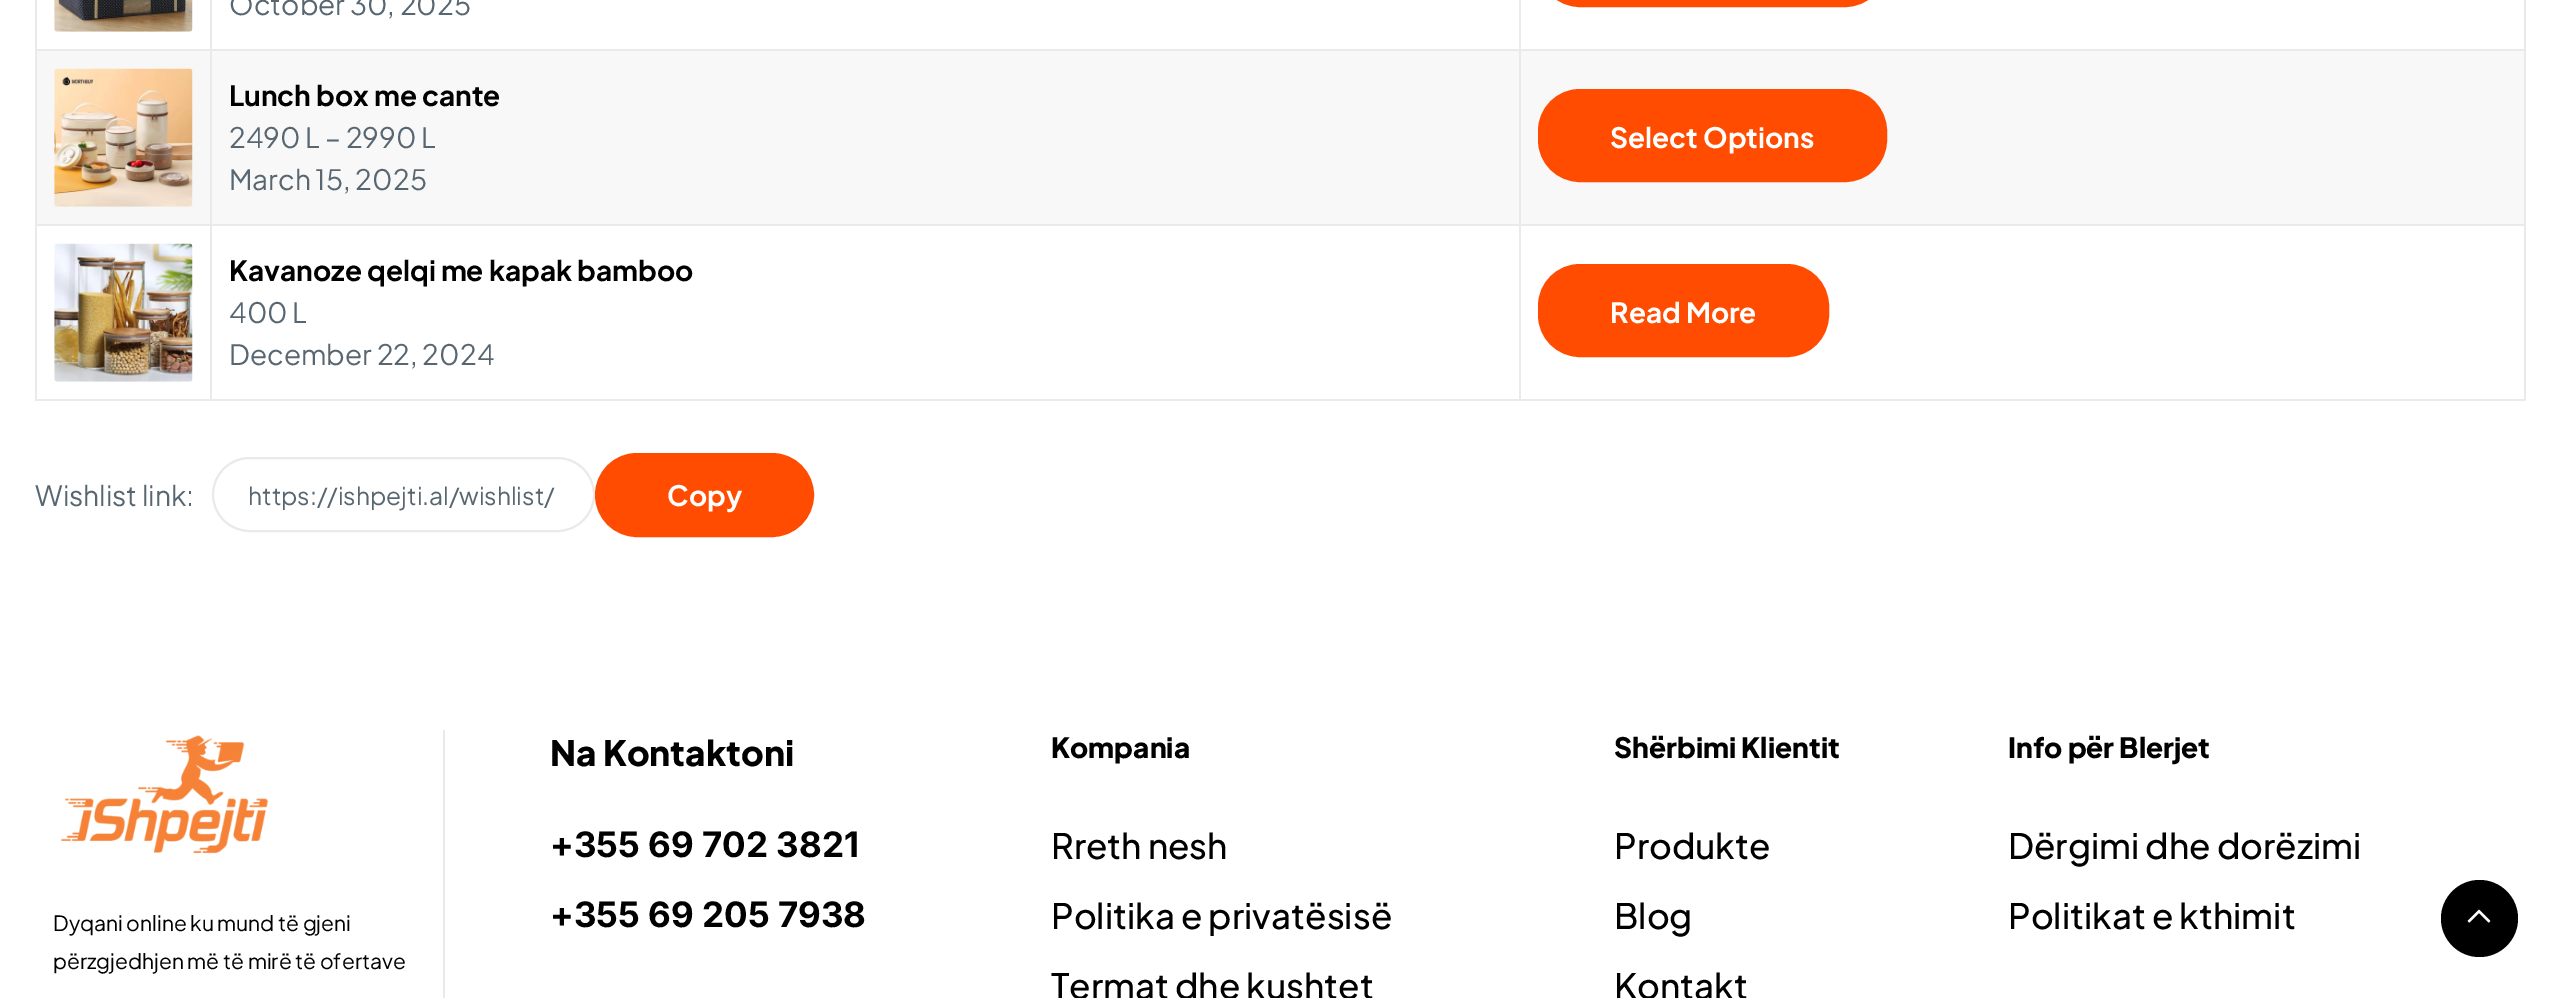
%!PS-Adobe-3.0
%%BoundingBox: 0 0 2560 998
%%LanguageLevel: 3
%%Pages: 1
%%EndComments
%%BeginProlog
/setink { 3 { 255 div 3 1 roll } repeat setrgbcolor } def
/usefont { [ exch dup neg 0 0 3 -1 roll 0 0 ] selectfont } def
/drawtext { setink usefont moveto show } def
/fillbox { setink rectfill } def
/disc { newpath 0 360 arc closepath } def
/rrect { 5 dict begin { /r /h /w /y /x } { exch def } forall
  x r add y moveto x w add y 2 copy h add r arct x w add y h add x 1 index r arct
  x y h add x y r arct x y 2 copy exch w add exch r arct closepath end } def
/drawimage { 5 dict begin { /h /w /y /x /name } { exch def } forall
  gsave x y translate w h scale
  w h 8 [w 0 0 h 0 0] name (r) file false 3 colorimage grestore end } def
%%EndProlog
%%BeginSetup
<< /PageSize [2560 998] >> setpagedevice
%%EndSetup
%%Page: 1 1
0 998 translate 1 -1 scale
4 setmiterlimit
0 0 2560 998 255 255 255 fillbox
255 76 0 setink
1539 -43 347 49 41 rrect gsave fill grestore
2 setlinewidth
stroke
(assets/img1.rgb) 54 0 139 32 drawimage
(October 30, 2025) 229 15 /PlusJakartaSans-Regular 28 87 102 112 drawtext
35 49 2490 2 234 234 234 fillbox
37 51 173 173 247 247 247 fillbox
(assets/img2.rgb) 54 68 139 139 drawimage
212 51 1307 173 248 248 248 fillbox
(Lunch box me cante) 229 106 /PlusJakartaSans-Bold 28 0 0 0 drawtext
(2490 L – 2990 L) 229 148 /PlusJakartaSans-Regular 28 87 102 112 drawtext
(March 15, 2025) 229 190 /PlusJakartaSans-Regular 28 87 102 112 drawtext
1521 51 1003 173 248 248 248 fillbox
255 76 0 setink
1539 90 347 91 41 rrect gsave fill grestore
stroke
(Select Options) 1610 148 /PlusJakartaSans-Bold 28 255 255 255 drawtext
35 224 2490 2 234 234 234 fillbox
35 399 2490 2 234 234 234 fillbox
35 0 2 401 234 234 234 fillbox
(assets/img3.rgb) 54 243 139 139 drawimage
210 0 2 401 234 234 234 fillbox
(Kavanoze qelqi me kapak bamboo) 229 281 /PlusJakartaSans-Bold 28 0 0 0 drawtext
(400 L) 229 323 /PlusJakartaSans-Regular 28 87 102 112 drawtext
(December 22, 2024) 229 365 /PlusJakartaSans-Regular 28 87 102 112 drawtext
2524 0 2 401 234 234 234 fillbox
1519 0 2 401 234 234 234 fillbox
255 76 0 setink
1539 265 289 91 41 rrect gsave fill grestore
stroke
(Read More) 1610 323 /PlusJakartaSans-Bold 28 255 255 255 drawtext
(Wishlist link:) 35 506 /PlusJakartaSans-Regular 28 87 102 112 drawtext
234 234 234 setink
213 458 381 73 36.5 rrect stroke
(https://ishpejti.al/wishlist/) 248 505 /PlusJakartaSans-Regular 24.5 87 102 112 drawtext
255 76 0 setink
596 454 217 82 41 rrect gsave fill grestore
stroke
(Copy) 667 506 /PlusJakartaSans-Bold 28 255 255 255 drawtext
(Na Kontaktoni) 550 766 /PlusJakartaSans-ExtraBold 35 0 0 0 drawtext
(+355 69 702 3821) 550 857 /Inter-Bold 35 0 0 0 drawtext
(+355 69 205 7938) 550 927 /Inter-Bold 35 0 0 0 drawtext
(Kompania) 1051 758 /PlusJakartaSans-ExtraBold 28 0 0 0 drawtext
(Rreth nesh) 1051 859 /PlusJakartaSans-Medium 35 0 0 0 drawtext
(Politika e privatësisë) 1051 929 /PlusJakartaSans-Medium 35 0 0 0 drawtext
(Termat dhe kushtet) 1051 999 /PlusJakartaSans-Medium 35 0 0 0 drawtext
(Shërbimi Klientit) 1614 758 /PlusJakartaSans-ExtraBold 28 0 0 0 drawtext
(Produkte) 1614 859 /PlusJakartaSans-Medium 35 0 0 0 drawtext
(Blog) 1614 929 /PlusJakartaSans-Medium 35 0 0 0 drawtext
(Kontakt) 1614 999 /PlusJakartaSans-Medium 35 0 0 0 drawtext
(Info për Blerjet) 2008 758 /PlusJakartaSans-ExtraBold 28 0 0 0 drawtext
(Dërgimi dhe dorëzimi) 2008 859 /PlusJakartaSans-Medium 35 0 0 0 drawtext
(Politikat e kthimit) 2008 929 /PlusJakartaSans-Medium 35 0 0 0 drawtext
443 730 2 268 234 234 234 fillbox
(assets/img4.rgb) 60 735 209 119 drawimage
(Dyqani online ku mund të gjeni) 53 931 /PlusJakartaSans-Regular 21 0 0 0 drawtext
(përzgjedhjen më të mirë të ofertave) 53 969 /PlusJakartaSans-Regular 21 0 0 0 drawtext
2479.5 918.5 38.5 disc fill
(assets/img5.rgb) 2467 909 24 14 drawimage
showpage
%%EOF
